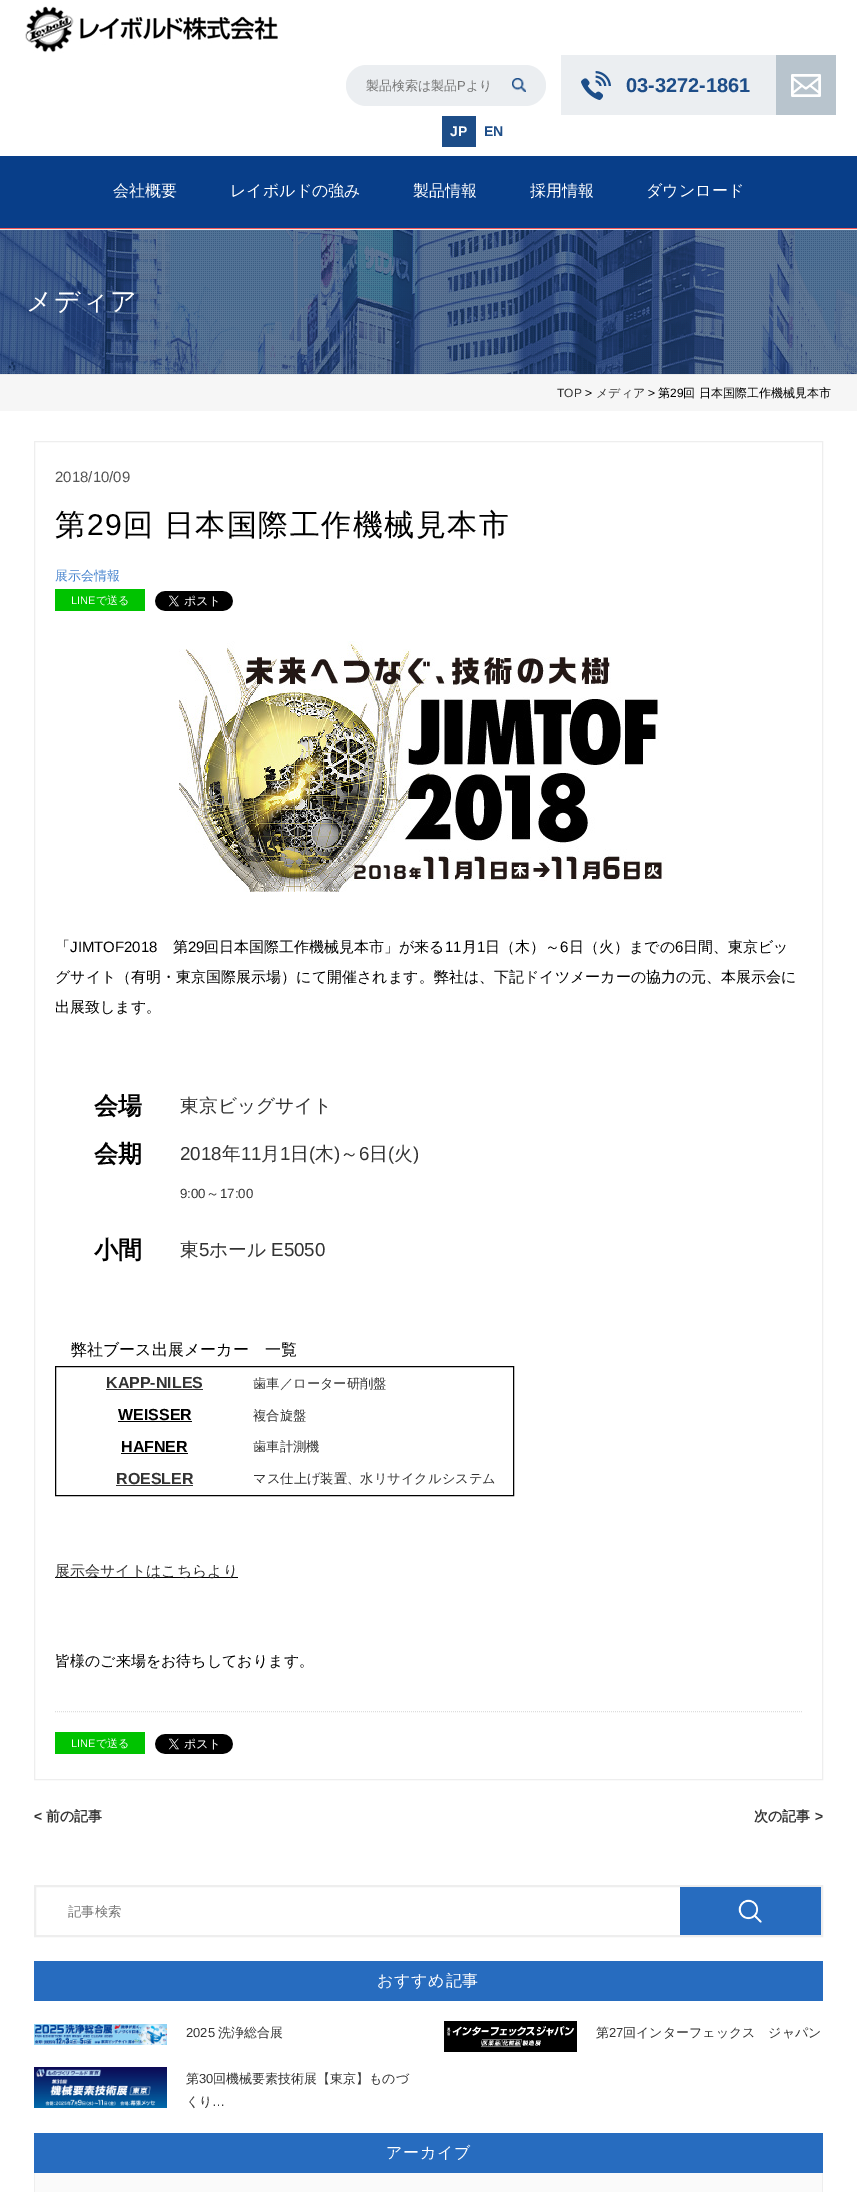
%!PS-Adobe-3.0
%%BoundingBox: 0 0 857 2192
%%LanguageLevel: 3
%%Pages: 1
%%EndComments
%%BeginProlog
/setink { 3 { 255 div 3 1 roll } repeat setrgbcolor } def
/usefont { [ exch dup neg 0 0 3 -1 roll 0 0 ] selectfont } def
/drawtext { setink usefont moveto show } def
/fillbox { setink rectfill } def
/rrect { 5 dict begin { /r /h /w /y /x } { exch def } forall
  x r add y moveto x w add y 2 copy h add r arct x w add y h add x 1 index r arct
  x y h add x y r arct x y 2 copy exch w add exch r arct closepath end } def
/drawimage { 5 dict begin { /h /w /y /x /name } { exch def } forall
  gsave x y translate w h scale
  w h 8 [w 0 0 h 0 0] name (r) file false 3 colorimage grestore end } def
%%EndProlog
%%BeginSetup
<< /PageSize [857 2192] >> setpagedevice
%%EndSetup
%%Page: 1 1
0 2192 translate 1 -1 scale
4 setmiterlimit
0 0 857 2192 255 255 255 fillbox
(assets/img1.rgb) 25 6 253 47 drawimage
235 238 241 setink
346 65 200 41 20.5 rrect fill
(製品検索は製品) 366 90 /WenQuanYiZenHei-Medium 13 117 117 117 drawtext
(P) 457 90 /LiberationSans-Regular 13 117 117 117 drawtext
(より) 466 90 /WenQuanYiZenHei-Medium 13 117 117 117 drawtext
(assets/img2.rgb) 512 78 14 14 drawimage
442 116 34 31 29 77 136 fillbox
(JP) 450 136 /LiberationSans-Bold 14 255 255 255 drawtext
(EN) 484 136 /LiberationSans-Bold 14 29 77 136 drawtext
561 55 215 60 235 238 241 fillbox
(assets/img3.rgb) 581 71 30 29 drawimage
(03-3272-1861) 626 92 /LiberationSans-Bold 20 29 77 136 drawtext
776 55 60 60 184 196 205 fillbox
(assets/img4.rgb) 791 74 30 23 drawimage
0 156 857 72 8 62 137 fillbox
0 228 857 1 242 87 87 fillbox
(会社概要) 113 196 /WenQuanYiZenHei-Medium 16 255 255 255 drawtext
(レイボルドの強み) 230 196 /WenQuanYiZenHei-Medium 16 255 255 255 drawtext
(製品情報) 413 196 /WenQuanYiZenHei-Medium 16 255 255 255 drawtext
(採用情報) 530 196 /WenQuanYiZenHei-Medium 16 255 255 255 drawtext
(ダウンロード) 646 196 /WenQuanYiZenHei-Medium 16 255 255 255 drawtext
(assets/img5.rgb) 0 230 857 144 drawimage
0 229 857 1 233 233 233 fillbox
0 374 857 1 233 233 233 fillbox
/WenQuanYiZenHei-Medium 26 usefont
255 255 255 setink
26 310 moveto 1.5 0 (メディア) ashow
0 375 857 36 246 246 246 fillbox
(TOP) 557 397 /LiberationSans-Regular 12 51 51 51 drawtext
(>) 585 397 /LiberationSans-Regular 12 0 0 0 drawtext
(メディア) 596 397 /WenQuanYiZenHei-Medium 12 51 51 51 drawtext
(>) 648 397 /LiberationSans-Regular 12 0 0 0 drawtext
(第) 658 397 /WenQuanYiZenHei-Medium 12 0 0 0 drawtext
(29) 670 397 /LiberationSans-Regular 12 0 0 0 drawtext
(回 日本国際工作機械見本市) 683 397 /WenQuanYiZenHei-Medium 12 0 0 0 drawtext
238 238 238 setink
34.5 441.5 788 1338 rectstroke
(2018/10/09) 55 482 /LiberationSans-Regular 15 85 85 85 drawtext
/WenQuanYiZenHei-Medium 30 usefont
0 0 0 setink
55 535 moveto 1.5 0 (第) ashow
/LiberationSans-Regular 30 usefont
87 535 moveto 1.5 0 (29) ashow
/WenQuanYiZenHei-Medium 30 usefont
123 535 moveto -1 0 32 1.5 0 (回 日本国際工作機械見本市) awidthshow
(展示会情報) 55 580 /WenQuanYiZenHei-Medium 13 70 131 206 drawtext
55 589 90 22 0 195 0 fillbox
(LINE) 71 604 /LiberationSans-Regular 11 255 255 255 drawtext
(で送る) 96 604 /WenQuanYiZenHei-Medium 11 255 255 255 drawtext
(assets/img6.rgb) 155 591 78 20 drawimage
(assets/img7.rgb) 179 641 487 251 drawimage
(「) 55 952 /WenQuanYiZenHei-Medium 15 0 0 0 drawtext
(JIMTOF2018) 70 952 /LiberationSans-Regular 15 0 0 0 drawtext
(第) 173 952 /WenQuanYiZenHei-Medium 15 0 0 0 drawtext
(29) 188 952 /LiberationSans-Regular 15 0 0 0 drawtext
(回日本国際工作機械見本市」が来る) 204 952 /WenQuanYiZenHei-Medium 15 0 0 0 drawtext
(11) 445 952 /LiberationSans-Regular 15 0 0 0 drawtext
(月) 462 952 /WenQuanYiZenHei-Medium 15 0 0 0 drawtext
(1) 477 952 /LiberationSans-Regular 15 0 0 0 drawtext
(日（木）～) 485 952 /WenQuanYiZenHei-Medium 15 0 0 0 drawtext
(6) 560 952 /LiberationSans-Regular 15 0 0 0 drawtext
(日（火）までの) 569 952 /WenQuanYiZenHei-Medium 15 0 0 0 drawtext
(6) 675 952 /LiberationSans-Regular 15 0 0 0 drawtext
(日間、東京ビッ) 683 952 /WenQuanYiZenHei-Medium 15 0 0 0 drawtext
(グサイト（有明・東京国際展示場）にて開催されます。弊社は、下記ドイツメーカーの協力の元、本展示会に) 55 982 /WenQuanYiZenHei-Medium 15 0 0 0 drawtext
(出展致します。) 55 1012 /WenQuanYiZenHei-Medium 15 0 0 0 drawtext
(会場) 94 1114 /WenQuanYiZenHei-Bold 24 0 0 0 drawtext
(東京ビッグサイト) 180 1112 /WenQuanYiZenHei-Medium 18.75 51 51 51 drawtext
(会期) 94 1162 /WenQuanYiZenHei-Bold 24 0 0 0 drawtext
(2018) 180 1160 /LiberationSans-Regular 18.75 51 51 51 drawtext
(年) 222 1160 /WenQuanYiZenHei-Medium 18.75 51 51 51 drawtext
(11) 241 1160 /LiberationSans-Regular 18.75 51 51 51 drawtext
(月) 261 1160 /WenQuanYiZenHei-Medium 18.75 51 51 51 drawtext
(1) 280 1160 /LiberationSans-Regular 18.75 51 51 51 drawtext
(日) 290 1160 /WenQuanYiZenHei-Medium 18.75 51 51 51 drawtext
(\() 309 1160 /LiberationSans-Regular 18.75 51 51 51 drawtext
(木) 315 1160 /WenQuanYiZenHei-Medium 18.75 51 51 51 drawtext
(\)) 334 1160 /LiberationSans-Regular 18.75 51 51 51 drawtext
(～) 340 1160 /WenQuanYiZenHei-Medium 18.75 51 51 51 drawtext
(6) 359 1160 /LiberationSans-Regular 18.75 51 51 51 drawtext
(日) 369 1160 /WenQuanYiZenHei-Medium 18.75 51 51 51 drawtext
(\() 388 1160 /LiberationSans-Regular 18.75 51 51 51 drawtext
(火) 394 1160 /WenQuanYiZenHei-Medium 18.75 51 51 51 drawtext
(\)) 413 1160 /LiberationSans-Regular 18.75 51 51 51 drawtext
(9:00) 180 1198 /LiberationSans-Regular 13.3 51 51 51 drawtext
(～) 206 1198 /WenQuanYiZenHei-Medium 13.3 51 51 51 drawtext
(17:00) 220 1198 /LiberationSans-Regular 13.3 51 51 51 drawtext
(小間) 94 1258 /WenQuanYiZenHei-Bold 24 0 0 0 drawtext
(東) 180 1256 /WenQuanYiZenHei-Medium 18.75 51 51 51 drawtext
(5) 199 1256 /LiberationSans-Regular 18.75 51 51 51 drawtext
(ホール) 209 1256 /WenQuanYiZenHei-Medium 18.75 51 51 51 drawtext
(E5050) 271 1256 /LiberationSans-Regular 18.75 51 51 51 drawtext
(弊社ブース出展メーカー　一覧) 71 1355 /WenQuanYiZenHei-Medium 16 0 0 0 drawtext
55.5 1366.5 458 129 rectstroke
(KAPP-NILES) 106 1388 /LiberationSans-Bold 16 51 51 51 drawtext
106 1389 97 1 51 51 51 fillbox
(歯車／ローター研削盤) 253 1388 /WenQuanYiZenHei-Medium 13.3 51 51 51 drawtext
(WEISSER) 118 1420 /LiberationSans-Bold 16 0 0 0 drawtext
118 1421 74 1 0 0 0 fillbox
(複合旋盤) 253 1420 /WenQuanYiZenHei-Medium 13.3 51 51 51 drawtext
(HAFNER) 121 1452 /LiberationSans-Bold 16 0 0 0 drawtext
121 1453 67 1 0 0 0 fillbox
(歯車計測機) 253 1451 /WenQuanYiZenHei-Medium 13.3 51 51 51 drawtext
(ROESLER) 116 1484 /LiberationSans-Bold 16 51 51 51 drawtext
116 1485 77 1 51 51 51 fillbox
(マス仕上げ装置、水リサイクルシステム) 253 1483 /WenQuanYiZenHei-Medium 13.3 51 51 51 drawtext
55 1577 183 1 0 0 0 fillbox
(展示会サイトはこちらより) 55 1576 /WenQuanYiZenHei-Medium 15 51 51 51 drawtext
(皆様のご来場をお待ちしております。) 55 1666 /WenQuanYiZenHei-Medium 15 0 0 0 drawtext
221 221 221 setink
[1 1] 0 setdash
55 1711.5 moveto 802 1711.5 lineto stroke
55 1732 90 22 0 195 0 fillbox
(LINE) 71 1747 /LiberationSans-Regular 11 255 255 255 drawtext
(で送る) 96 1747 /WenQuanYiZenHei-Medium 11 255 255 255 drawtext
(assets/img6.rgb) 155 1734 78 20 drawimage
(<) 34 1821 /LiberationSans-Bold 14 51 51 51 drawtext
(前の記事) 46 1821 /WenQuanYiZenHei-Bold 14 51 51 51 drawtext
(次の記事) 754 1821 /WenQuanYiZenHei-Bold 14 51 51 51 drawtext
(>) 815 1821 /LiberationSans-Bold 14 51 51 51 drawtext
238 238 238 setink
2 setlinewidth
[] 0 setdash
35 1886 787 50 rectstroke
(記事検索) 68 1916 /WenQuanYiZenHei-Medium 13.3 117 117 117 drawtext
680 1887 141 48 39 108 191 fillbox
(assets/img8.rgb) 738 1899 24 24 drawimage
34 1961 789 40 39 108 191 fillbox
/WenQuanYiZenHei-Medium 16 usefont
255 255 255 setink
377 1986 moveto 0.75 0 (おすすめ記事) ashow
(assets/img9.rgb) 34 2024 133 21 drawimage
(2025) 186 2037 /LiberationSans-Regular 13 51 51 51 drawtext
(洗浄総合展) 218 2037 /WenQuanYiZenHei-Medium 13 51 51 51 drawtext
(assets/img10.rgb) 444 2021 133 31 drawimage
(第) 596 2037 /WenQuanYiZenHei-Medium 13 51 51 51 drawtext
(27) 609 2037 /LiberationSans-Regular 13 51 51 51 drawtext
(回インターフェックス　ジャパン) 623 2037 /WenQuanYiZenHei-Medium 13 51 51 51 drawtext
(assets/img11.rgb) 34 2067 133 41 drawimage
(第) 186 2083 /WenQuanYiZenHei-Medium 13 51 51 51 drawtext
(30) 199 2083 /LiberationSans-Regular 13 51 51 51 drawtext
(回機械要素技術展【東京】ものづ) 213 2083 /WenQuanYiZenHei-Medium 13 51 51 51 drawtext
(くり) 186 2106 /WenQuanYiZenHei-Medium 13 51 51 51 drawtext
(…) 212 2106 /LiberationSans-Regular 13 51 51 51 drawtext
34 2133 789 40 39 108 191 fillbox
/WenQuanYiZenHei-Medium 16 usefont
255 255 255 setink
386 2158 moveto 0.75 0 (アーカイブ) ashow
35 2173 787 19 250 250 250 fillbox
822 2173 1 19 238 238 238 fillbox
34 2173 1 19 238 238 238 fillbox
showpage
%%EOF
